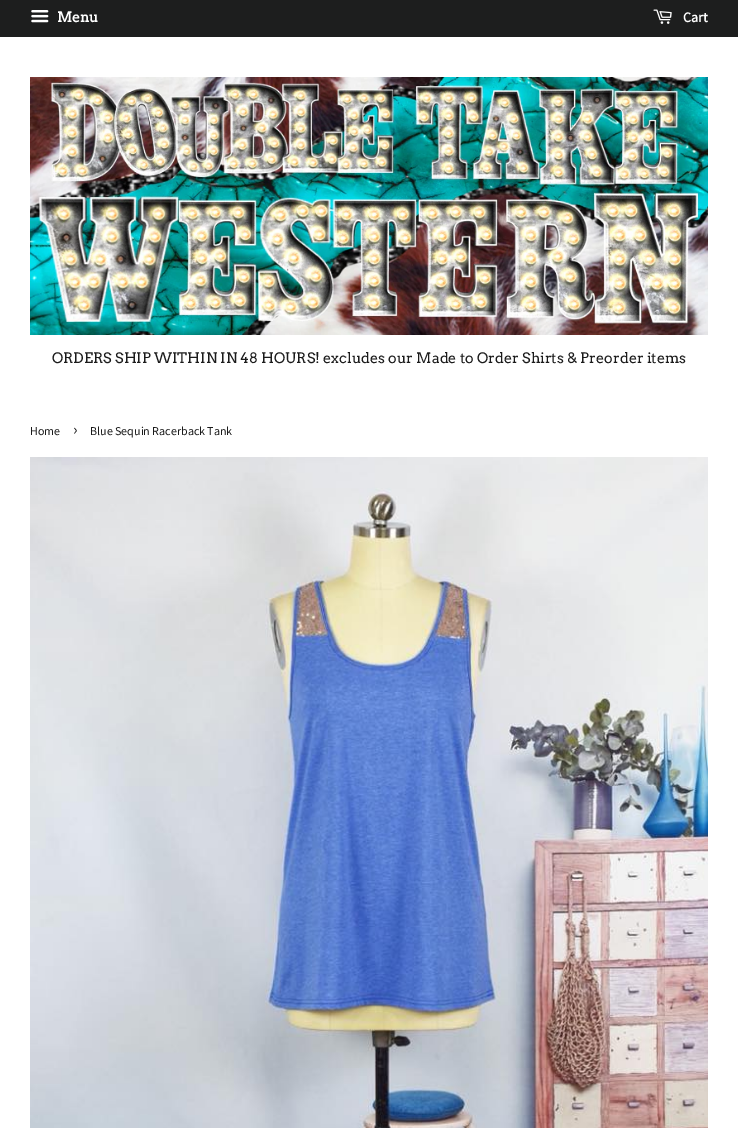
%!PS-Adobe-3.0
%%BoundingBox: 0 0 738 1128
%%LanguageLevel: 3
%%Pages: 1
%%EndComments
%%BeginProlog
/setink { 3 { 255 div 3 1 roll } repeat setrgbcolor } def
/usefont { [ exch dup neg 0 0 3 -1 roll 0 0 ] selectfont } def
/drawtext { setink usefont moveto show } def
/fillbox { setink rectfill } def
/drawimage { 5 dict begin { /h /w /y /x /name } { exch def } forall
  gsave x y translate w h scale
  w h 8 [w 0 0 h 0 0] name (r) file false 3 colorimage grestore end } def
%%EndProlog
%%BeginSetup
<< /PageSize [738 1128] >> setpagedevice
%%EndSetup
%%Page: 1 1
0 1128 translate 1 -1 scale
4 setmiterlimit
0 0 738 1128 255 255 255 fillbox
0 0 738 37 29 30 30 fillbox
(assets/img1.rgb) 31 10 18 13 drawimage
(Menu) 57 22 /Arvo-Bold 14 255 255 255 drawtext
(assets/img2.rgb) 653 9 19 15 drawimage
(Cart) 683 22 /SourceSansPro-Bold 14 255 255 255 drawtext
(assets/img3.rgb) 30 77 678 258 drawimage
(ORDERS SHIP WITHIN IN 48 HOURS! excludes our Made to Order Shirts & Preorder items) 52 363 /Arvo-Regular 14.4 27 27 27 drawtext
(Home) 30 435 /SourceSansPro-Regular 12 27 27 27 drawtext
(›) 73 435 /SourceSansPro-Regular 17 27 27 27 drawtext
(Blue Sequin Racerback Tank) 90 435 /SourceSansPro-Regular 12 27 27 27 drawtext
(assets/img4.rgb) 30 457 678 671 drawimage
showpage
%%EOF
